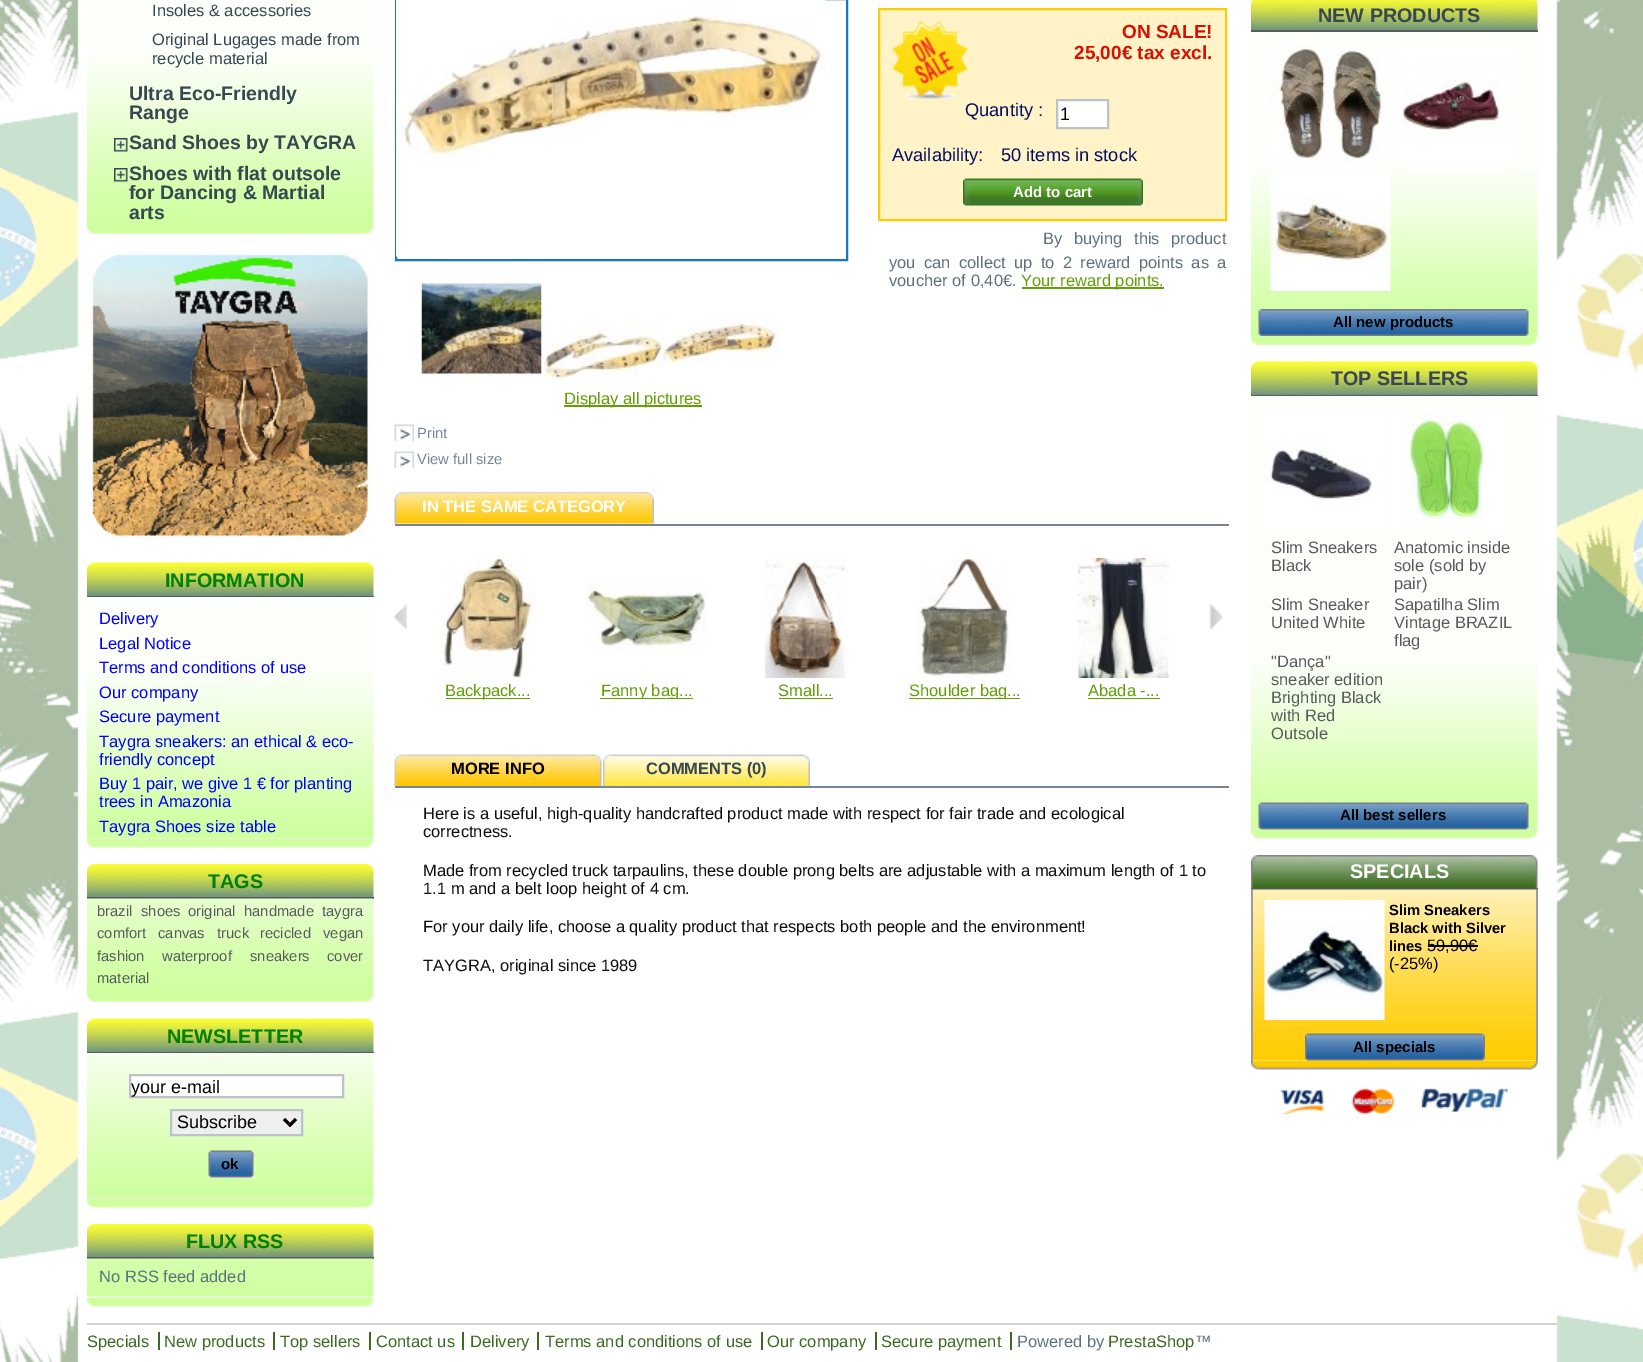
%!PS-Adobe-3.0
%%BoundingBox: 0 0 1643 1362
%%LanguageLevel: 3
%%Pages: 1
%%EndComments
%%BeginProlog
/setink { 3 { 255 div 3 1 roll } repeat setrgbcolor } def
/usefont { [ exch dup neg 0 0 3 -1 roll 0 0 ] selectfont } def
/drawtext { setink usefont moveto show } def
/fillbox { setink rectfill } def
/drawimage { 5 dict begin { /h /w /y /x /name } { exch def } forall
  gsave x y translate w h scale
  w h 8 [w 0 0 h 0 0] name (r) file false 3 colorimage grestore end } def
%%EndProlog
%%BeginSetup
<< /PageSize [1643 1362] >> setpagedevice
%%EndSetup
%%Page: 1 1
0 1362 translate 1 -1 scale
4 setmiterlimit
0 0 1643 1362 255 255 255 fillbox
(assets/img1.rgb) 0 0 1643 1362 drawimage
(assets/img2.rgb) 87 225 287 9 drawimage
87 0 287 225 253 255 250 fillbox
(assets/img3.rgb) 87 60 287 165 drawimage
(Insoles & accessories) 152 16 /LiberationSans-Regular 16.5 55 72 83 drawtext
(Original Lugages made from) 152 45 /LiberationSans-Regular 16.5 55 72 83 drawtext
(recycle material) 152 64 /LiberationSans-Regular 16.5 55 72 83 drawtext
(Ultra Eco-Friendly) 129 100 /LiberationSans-Bold 19.5 55 72 83 drawtext
(Range) 129 119 /LiberationSans-Bold 19.5 55 72 83 drawtext
(assets/img4.rgb) 114 138 14 14 drawimage
(Sand Shoes by TAYGRA) 129 149 /LiberationSans-Bold 19.5 55 72 83 drawtext
(assets/img5.rgb) 114 168 14 14 drawimage
(Shoes with flat outsole) 129 180 /LiberationSans-Bold 19.5 55 72 83 drawtext
(for Dancing & Martial) 129 199 /LiberationSans-Bold 19.5 55 72 83 drawtext
(arts) 129 219 /LiberationSans-Bold 19.5 55 72 83 drawtext
(assets/img6.rgb) 88 250 286 289 drawimage
(assets/img7.rgb) 87 839 287 9 drawimage
(assets/img8.rgb) 87 562 287 34 drawimage
87 596 287 1 89 90 94 fillbox
(INFORMATION) 165 587 /LiberationSans-Bold 19.75 0 128 0 drawtext
87 597 287 242 253 255 250 fillbox
(assets/img9.rgb) 87 674 287 165 drawimage
(Delivery) 99 624 /LiberationSans-Regular 16.5 0 0 255 drawtext
(Legal Notice) 99 649 /LiberationSans-Regular 16.5 0 0 255 drawtext
(Terms and conditions of use) 99 673 /LiberationSans-Regular 16.5 0 0 255 drawtext
(Our company) 99 698 /LiberationSans-Regular 16.5 0 0 255 drawtext
(Secure payment) 99 722 /LiberationSans-Regular 16.5 0 0 255 drawtext
(Taygra sneakers: an ethical & eco-) 99 747 /LiberationSans-Regular 16.5 0 0 255 drawtext
(friendly concept) 99 765 /LiberationSans-Regular 16.5 0 0 255 drawtext
(Buy 1 pair, we give 1 € for planting) 99 789 /LiberationSans-Regular 16.5 0 0 255 drawtext
(trees in Amazonia) 99 807 /LiberationSans-Regular 16.5 0 0 255 drawtext
(Taygra Shoes size table) 99 832 /LiberationSans-Regular 16.5 0 0 255 drawtext
(assets/img2.rgb) 87 993 287 9 drawimage
(assets/img10.rgb) 87 864 287 33 drawimage
87 897 287 2 89 90 94 fillbox
(TAGS) 208 888 /LiberationSans-Bold 19.75 0 128 0 drawtext
373 899 1 94 253 255 250 fillbox
(assets/img11.rgb) 87 898 287 95 drawimage
(brazil) 97 916 /LiberationSans-Regular 14.75 89 90 94 drawtext
(shoes) 141 916 /LiberationSans-Regular 14.75 89 90 94 drawtext
(original) 188 916 /LiberationSans-Regular 14.75 89 90 94 drawtext
(handmade) 244 916 /LiberationSans-Regular 14.75 89 90 94 drawtext
(taygra) 322 916 /LiberationSans-Regular 14.75 89 90 94 drawtext
(comfort) 97 938 /LiberationSans-Regular 14.75 89 90 94 drawtext
(canvas) 158 938 /LiberationSans-Regular 14.75 89 90 94 drawtext
(truck) 217 938 /LiberationSans-Regular 14.75 89 90 94 drawtext
(recicled) 260 938 /LiberationSans-Regular 14.75 89 90 94 drawtext
(vegan) 323 938 /LiberationSans-Regular 14.75 89 90 94 drawtext
(fashion) 97 961 /LiberationSans-Regular 14.75 89 90 94 drawtext
(waterproof) 162 961 /LiberationSans-Regular 14.75 89 90 94 drawtext
(sneakers) 250 961 /LiberationSans-Regular 14.75 89 90 94 drawtext
(cover) 327 961 /LiberationSans-Regular 14.75 89 90 94 drawtext
(material) 97 983 /LiberationSans-Regular 14.75 89 90 94 drawtext
(assets/img7.rgb) 87 1199 287 9 drawimage
(assets/img8.rgb) 87 1018 287 34 drawimage
87 1052 287 1 89 90 94 fillbox
(NEWSLETTER) 167 1043 /LiberationSans-Bold 19.75 0 128 0 drawtext
87 1053 287 146 253 255 250 fillbox
(assets/img12.rgb) 87 1053 287 146 drawimage
255 255 255 setink
130 1075 moveto 343 1075 lineto 343 1097 lineto 130 1097 lineto closepath gsave fill grestore
189 194 201 setink
2 setlinewidth
stroke
(your e-mail) 131 1093 /LiberationSans-Regular 18 0 0 0 drawtext
239 239 239 setink
171 1110 moveto 302 1110 lineto 302 1135 lineto 171 1135 lineto closepath gsave fill grestore
189 194 201 setink
stroke
0 0 0 setink
3 setlinewidth
284 1119 moveto 290 1125 lineto 296 1119 lineto stroke
(Subscribe) 177 1128 /LiberationSans-Regular 18 0 0 0 drawtext
209 1151 45 27 239 239 239 fillbox
(assets/img13.rgb) 208 1150 46 28 drawimage
(ok) 221 1169 /LiberationSans-Bold 15 0 0 0 drawtext
(assets/img7.rgb) 87 1298 287 9 drawimage
(assets/img10.rgb) 87 1224 287 33 drawimage
87 1257 287 2 89 90 94 fillbox
(FLUX RSS) 186 1248 /LiberationSans-Bold 19.75 0 128 0 drawtext
87 1259 287 39 253 255 250 fillbox
(assets/img14.rgb) 87 1258 287 39 drawimage
(No RSS feed added) 99 1282 /LiberationSans-Regular 16.5 93 113 126 drawtext
255 243 199 setink
879 9 moveto 1226 9 lineto 1226 220 lineto 879 220 lineto closepath gsave fill grestore
255 204 1 setink
2 setlinewidth
stroke
(assets/img15.rgb) 892 21 76 78 drawimage
(ON SALE!) 1122 38 /LiberationSans-Bold 19 218 15 0 drawtext
(25,00€ tax excl.) 1074 59 /LiberationSans-Bold 19 218 15 0 drawtext
(Quantity :) 965 116 /LiberationSans-Regular 18.25 3 15 100 drawtext
255 255 255 setink
1057 100 moveto 1108 100 lineto 1108 128 lineto 1057 128 lineto closepath gsave fill grestore
189 194 201 setink
stroke
(1) 1060 120 /LiberationSans-Regular 18 0 0 0 drawtext
(Availability:) 892 161 /LiberationSans-Regular 18.25 3 15 100 drawtext
(50 items in stock) 1001 161 /LiberationSans-Regular 18.25 3 15 100 drawtext
963 179 180 27 239 239 239 fillbox
(assets/img16.rgb) 963 178 180 28 drawimage
(Add to cart) 1013 197 /LiberationSans-Bold 15 255 255 255 drawtext
/LiberationSans-Regular 16.5 usefont
93 113 126 setink
1043 244 moveto 7 0 32 (By buying this product) widthshow
889 268 moveto 3.75 0 32 (you can collect up to 2 reward points as a) widthshow
(voucher of 0,40€.) 889 286 /LiberationSans-Regular 16.5 93 113 126 drawtext
1022 287 142 2 97 159 4 fillbox
(Your reward points.) 1021 286 /LiberationSans-Regular 16.5 97 159 4 drawtext
25 118 191 setink
396 -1 451 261 rectstroke
(assets/img17.rgb) 396 0 429 257 drawimage
(assets/img18.rgb) 421 269 121 119 drawimage
(assets/img19.rgb) 541 283 121 105 drawimage
(assets/img20.rgb) 661 317 120 48 drawimage
564 405 138 2 97 159 4 fillbox
(Display all pictures) 564 404 /LiberationSans-Regular 16.5 97 159 4 drawtext
(assets/img21.rgb) 394 424 20 17 drawimage
(Print) 417 438 /LiberationSans-Regular 14.75 118 131 155 drawtext
(assets/img21.rgb) 394 451 20 17 drawimage
(View full size) 417 464 /LiberationSans-Regular 14.75 118 131 155 drawtext
395 524 834 2 118 131 155 fillbox
(assets/img22.rgb) 394 492 260 32 drawimage
(IN THE SAME CATEGORY) 422 512 /LiberationSans-Bold 16.5 255 255 255 drawtext
(assets/img23.rgb) 394 603 14 27 drawimage
(assets/img24.rgb) 1209 603 14 27 drawimage
(assets/img25.rgb) 440 558 96 120 drawimage
446 698 84 1 97 159 4 fillbox
(Backpack...) 445 696 /LiberationSans-Regular 16.5 97 159 4 drawtext
(assets/img26.rgb) 586 582 121 72 drawimage
600 698 93 1 97 159 4 fillbox
gsave
572 558 150 141 rectclip
(Fanny bag...) 601 696 /LiberationSans-Regular 16.5 97 159 4 drawtext
grestore
(assets/img27.rgb) 764 558 81 120 drawimage
(Small...) 778 696 /LiberationSans-Regular 16.5 97 159 4 drawtext
779 698 54 1 97 159 4 fillbox
(assets/img28.rgb) 917 558 95 120 drawimage
909 698 111 1 97 159 4 fillbox
gsave
890 558 150 141 rectclip
(Shoulder bag...) 909 696 /LiberationSans-Regular 16.5 97 159 4 drawtext
grestore
(assets/img29.rgb) 1076 558 94 120 drawimage
(Abada -...) 1088 696 /LiberationSans-Regular 16.5 97 159 4 drawtext
1088 698 72 1 97 159 4 fillbox
395 786 834 2 118 131 155 fillbox
(assets/img30.rgb) 394 754 208 32 drawimage
(MORE INFO) 451 774 /LiberationSans-Bold 16.5 0 0 0 drawtext
(assets/img31.rgb) 603 754 207 32 drawimage
(COMMENTS \(0\)) 646 774 /LiberationSans-Bold 16.5 55 72 83 drawtext
(Here is a useful, high-quality handcrafted product made with respect for fair trade and ecological) 423 819 /LiberationSans-Regular 16.5 13 13 13 drawtext
(correctness.) 423 837 /LiberationSans-Regular 16.5 13 13 13 drawtext
(Made from recycled truck tarpaulins, these double prong belts are adjustable with a maximum length of 1 to) 423 876 /LiberationSans-Regular 16.5 13 13 13 drawtext
(1.1 m and a belt loop height of 4 cm.) 423 894 /LiberationSans-Regular 16.5 13 13 13 drawtext
(For your daily life, choose a quality product that respects both people and the environment!) 423 932 /LiberationSans-Regular 16.5 13 13 13 drawtext
(TAYGRA, original since 1989) 423 971 /LiberationSans-Regular 16.5 13 13 13 drawtext
(assets/img32.rgb) 1251 336 287 9 drawimage
(assets/img33.rgb) 1251 0 287 30 drawimage
1251 30 287 2 89 90 94 fillbox
(NEW PRODUCTS) 1318 22 /LiberationSans-Bold 19.75 55 72 83 drawtext
1251 32 287 304 253 255 250 fillbox
(assets/img34.rgb) 1251 171 287 165 drawimage
(assets/img35.rgb) 1271 45 119 120 drawimage
(assets/img36.rgb) 1394 45 119 120 drawimage
(assets/img37.rgb) 1270 171 121 120 drawimage
(assets/img38.rgb) 1258 309 271 27 drawimage
(All new products) 1333 327 /LiberationSans-Bold 15 0 0 0 drawtext
(assets/img39.rgb) 1251 830 287 9 drawimage
(assets/img40.rgb) 1251 361 287 34 drawimage
1251 395 287 1 89 90 94 fillbox
(TOP SELLERS) 1331 385 /LiberationSans-Bold 19.75 55 72 83 drawtext
1251 396 287 434 253 255 250 fillbox
(assets/img41.rgb) 1251 665 287 165 drawimage
(assets/img42.rgb) 1263 411 120 120 drawimage
(assets/img43.rgb) 1386 411 120 120 drawimage
(Slim Sneakers) 1271 553 /LiberationSans-Regular 16.5 89 90 94 drawtext
(Black) 1271 571 /LiberationSans-Regular 16.5 89 90 94 drawtext
(Anatomic inside) 1394 553 /LiberationSans-Regular 16.5 89 90 94 drawtext
(sole \(sold by) 1394 571 /LiberationSans-Regular 16.5 89 90 94 drawtext
(pair\)) 1394 589 /LiberationSans-Regular 16.5 89 90 94 drawtext
(Slim Sneaker) 1271 610 /LiberationSans-Regular 16.5 89 90 94 drawtext
(United White) 1271 628 /LiberationSans-Regular 16.5 89 90 94 drawtext
(Sapatilha Slim) 1394 610 /LiberationSans-Regular 16.5 89 90 94 drawtext
(Vintage BRAZIL) 1394 628 /LiberationSans-Regular 16.5 89 90 94 drawtext
(flag) 1394 646 /LiberationSans-Regular 16.5 89 90 94 drawtext
("Dança") 1271 667 /LiberationSans-Regular 16.5 89 90 94 drawtext
(sneaker edition) 1271 685 /LiberationSans-Regular 16.5 89 90 94 drawtext
(Brighting Black) 1271 703 /LiberationSans-Regular 16.5 89 90 94 drawtext
(with Red) 1271 721 /LiberationSans-Regular 16.5 89 90 94 drawtext
(Outsole) 1271 739 /LiberationSans-Regular 16.5 89 90 94 drawtext
(assets/img44.rgb) 1258 802 271 28 drawimage
(All best sellers) 1340 820 /LiberationSans-Bold 15 0 0 0 drawtext
(assets/img45.rgb) 1251 1061 287 9 drawimage
(assets/img46.rgb) 1251 855 287 33 drawimage
1251 888 287 2 89 90 94 fillbox
(SPECIALS) 1350 878 /LiberationSans-Bold 19.75 255 255 255 drawtext
1253 1060 283 1 255 245 209 fillbox
(assets/img47.rgb) 1251 889 287 172 drawimage
1536 890 2 171 159 154 161 fillbox
1251 890 2 171 159 154 161 fillbox
(assets/img48.rgb) 1264 900 121 120 drawimage
(Slim Sneakers) 1389 915 /LiberationSans-Bold 14.75 0 0 0 drawtext
(Black with Silver) 1389 933 /LiberationSans-Bold 14.75 0 0 0 drawtext
(lines) 1389 951 /LiberationSans-Bold 14.75 0 0 0 drawtext
(59,90€) 1427 951 /LiberationSans-Regular 16.5 0 0 0 drawtext
1428 945 50 2 0 0 0 fillbox
(\(-25%\)) 1389 969 /LiberationSans-Regular 16.5 0 0 0 drawtext
(assets/img49.rgb) 1305 1033 180 28 drawimage
(All specials) 1353 1052 /LiberationSans-Bold 15 0 0 0 drawtext
(assets/img50.rgb) 1279 1089 46 28 drawimage
(assets/img51.rgb) 1351 1086 45 29 drawimage
(assets/img52.rgb) 1421 1088 87 24 drawimage
87 1323 1470 2 208 211 216 fillbox
(Specials) 87 1347 /LiberationSans-Regular 16.5 58 107 32 drawtext
(New products) 164 1347 /LiberationSans-Regular 16.5 58 107 32 drawtext
158 1332 2 18 58 107 32 fillbox
(Top sellers) 280 1347 /LiberationSans-Regular 16.5 58 107 32 drawtext
273 1332 2 18 58 107 32 fillbox
(Contact us) 376 1347 /LiberationSans-Regular 16.5 58 107 32 drawtext
369 1332 2 18 58 107 32 fillbox
(Delivery) 470 1347 /LiberationSans-Regular 16.5 58 107 32 drawtext
462 1332 2 18 58 107 32 fillbox
(Terms and conditions of use) 545 1347 /LiberationSans-Regular 16.5 58 107 32 drawtext
537 1332 2 18 58 107 32 fillbox
(Our company) 767 1347 /LiberationSans-Regular 16.5 58 107 32 drawtext
761 1332 2 18 58 107 32 fillbox
(Secure payment) 881 1347 /LiberationSans-Regular 16.5 58 107 32 drawtext
875 1332 2 18 58 107 32 fillbox
(Powered by) 1017 1347 /LiberationSans-Regular 16.5 93 113 126 drawtext
1010 1332 2 18 58 107 32 fillbox
(PrestaShop) 1108 1347 /LiberationSans-Regular 16.5 58 107 32 drawtext
(™) 1195 1347 /LiberationSans-Regular 16.5 93 113 126 drawtext
showpage
%%EOF
